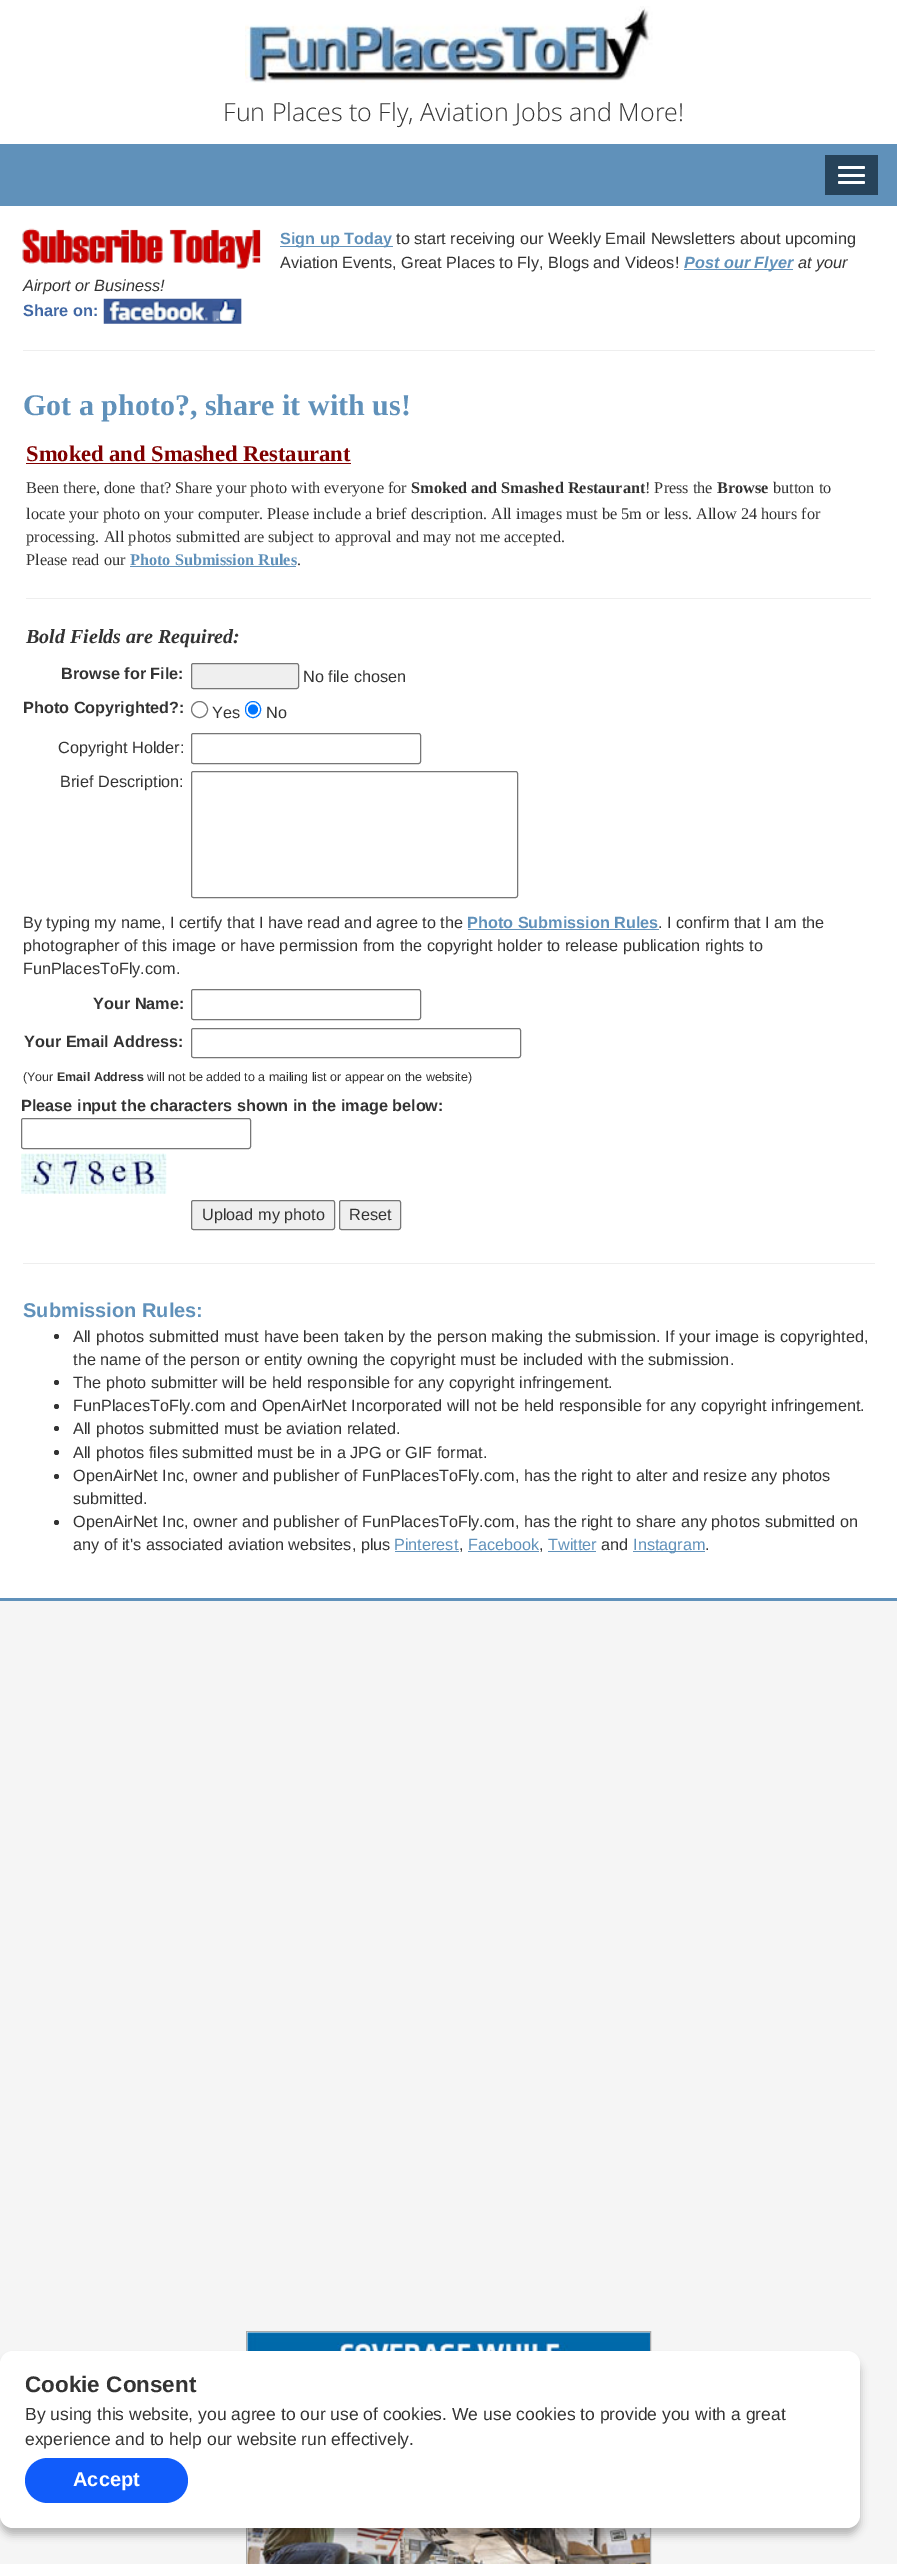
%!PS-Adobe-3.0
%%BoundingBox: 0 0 897 2564
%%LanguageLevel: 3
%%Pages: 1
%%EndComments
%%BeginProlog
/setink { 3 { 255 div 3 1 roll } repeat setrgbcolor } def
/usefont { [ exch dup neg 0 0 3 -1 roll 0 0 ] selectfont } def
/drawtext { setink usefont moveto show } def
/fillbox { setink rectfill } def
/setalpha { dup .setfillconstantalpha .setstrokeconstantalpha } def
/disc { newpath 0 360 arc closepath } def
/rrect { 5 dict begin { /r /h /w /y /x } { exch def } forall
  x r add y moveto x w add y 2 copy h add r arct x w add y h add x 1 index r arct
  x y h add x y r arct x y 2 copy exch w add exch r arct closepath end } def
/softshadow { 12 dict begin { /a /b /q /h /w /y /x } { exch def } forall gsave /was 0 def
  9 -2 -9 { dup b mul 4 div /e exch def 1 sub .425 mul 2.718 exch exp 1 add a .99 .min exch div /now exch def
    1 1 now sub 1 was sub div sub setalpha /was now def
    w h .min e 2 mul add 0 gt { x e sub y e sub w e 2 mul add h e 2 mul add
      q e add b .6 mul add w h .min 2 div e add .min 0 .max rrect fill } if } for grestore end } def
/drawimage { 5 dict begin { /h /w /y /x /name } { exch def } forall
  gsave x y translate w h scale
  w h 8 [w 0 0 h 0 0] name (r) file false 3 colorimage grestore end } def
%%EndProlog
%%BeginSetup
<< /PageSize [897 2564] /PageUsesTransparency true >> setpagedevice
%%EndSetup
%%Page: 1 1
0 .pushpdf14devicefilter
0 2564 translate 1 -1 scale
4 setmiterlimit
0 0 897 2564 255 255 255 fillbox
(assets/img1.rgb) 245 6 408 77 drawimage
(Fun Places to Fly, Aviation Jobs and More!) 223 121 /OpenSans-Light 25 51 51 51 drawtext
0 144 897 62 96 145 186 fillbox
825 155 53 40 39 67 90 fillbox
255 255 255 setink
838 166 27 3 1.5 rrect fill
838 174 27 3 1.5 rrect fill
838 181 27 3 1.5 rrect fill
(assets/img2.rgb) 22 228 239 41 drawimage
280 246 113 1 96 145 186 fillbox
(Sign up Today) 280 244 /LiberationSans-Bold 16.25 96 145 186 drawtext
(to start receiving our Weekly Email Newsletters about upcoming) 396 244 /LiberationSans-Regular 16.25 51 51 51 drawtext
(Aviation Events, Great Places to Fly, Blogs and Videos!) 280 268 /LiberationSans-Regular 16.25 51 51 51 drawtext
684 269 109 1 96 145 186 fillbox
(Post our Flyer) 684 268 /LiberationSans-BoldItalic 16.25 96 145 186 drawtext
(at your) 798 268 /LiberationSans-Italic 16.25 51 51 51 drawtext
(Airport or Business!) 23 291 /LiberationSans-Italic 16.25 51 51 51 drawtext
(Share on:) 23 316 /LiberationSans-Bold 16.25 64 103 164 drawtext
(assets/img3.rgb) 103 298 139 26 drawimage
23 350 852 1 238 238 238 fillbox
(Got a photo?, share it with us!) 23 415 /LiberationSerif-Bold 30 96 145 186 drawtext
(Smoked and Smashed Restaurant) 26 461 /LiberationSerif-Bold 22.5 128 0 0 drawtext
26 463 325 1 128 0 0 fillbox
(Been there, done that? Share your photo with everyone for) 26 493 /LiberationSerif-Regular 16.25 51 51 51 drawtext
(Smoked and Smashed Restaurant) 411 493 /LiberationSerif-Bold 16.25 51 51 51 drawtext
(! Press the) 645 493 /LiberationSerif-Regular 16.25 51 51 51 drawtext
(Browse) 717 493 /LiberationSerif-Bold 16.25 51 51 51 drawtext
(button to) 773 493 /LiberationSerif-Regular 16.25 51 51 51 drawtext
(locate your photo on your computer. Please include a brief description. All images must be 5m or less. Allow 24 hours for) 26 519 /LiberationSerif-Regular 16.25 51 51 51 drawtext
(processing. All photos submitted are subject to approval and may not me accepted.) 26 542 /LiberationSerif-Regular 16.25 51 51 51 drawtext
(Please read our) 26 565 /LiberationSerif-Regular 16.25 51 51 51 drawtext
(Photo Submission Rules) 130 565 /LiberationSerif-Bold 16.25 96 145 186 drawtext
(.) 297 565 /LiberationSerif-Regular 16.25 51 51 51 drawtext
130 566 166 1 96 145 186 fillbox
26 598 845 1 238 238 238 fillbox
(Bold Fields are Required:) 26 643 /LiberationSerif-BoldItalic 20 51 51 51 drawtext
(Browse for File:) 61 679 /LiberationSans-Bold 16.25 51 51 51 drawtext
239 239 239 setink
191.5 663.5 107 25 2 rrect gsave fill grestore
118 118 118 setink
stroke
(No file chosen) 303 682 /LiberationSans-Regular 16.25 51 51 51 drawtext
(Photo Copyrighted?:) 23 713 /LiberationSans-Bold 16.25 51 51 51 drawtext
118 118 118 setink
199.5 709.5 8 disc stroke
(Yes) 212 718 /LiberationSans-Regular 16.25 51 51 51 drawtext
0 117 255 setink
245.5 701.5 15 16 7.5 rrect stroke
253 709.5 5 disc fill
(No) 266 718 /LiberationSans-Regular 16.25 51 51 51 drawtext
(Copyright Holder:) 58 753 /LiberationSans-Regular 16.25 51 51 51 drawtext
118 118 118 setink
191.5 733.5 229 30 2 rrect stroke
(Brief Description:) 60 787 /LiberationSans-Regular 16.25 51 51 51 drawtext
118 118 118 setink
191.5 771.5 326 126 2 rrect stroke
(By typing my name, I certify that I have read and agree to the) 23 928 /LiberationSans-Regular 16.25 51 51 51 drawtext
(Photo Submission Rules) 467 928 /LiberationSans-Bold 16.25 96 145 186 drawtext
468 929 191 1 96 145 186 fillbox
(. I confirm that I am the) 658 928 /LiberationSans-Regular 16.25 51 51 51 drawtext
(photographer of this image or have permission from the copyright holder to release publication rights to) 23 951 /LiberationSans-Regular 16.25 51 51 51 drawtext
(FunPlacesToFly.com.) 23 974 /LiberationSans-Regular 16.25 51 51 51 drawtext
(Your Name:) 93 1009 /LiberationSans-Bold 16.25 51 51 51 drawtext
118 118 118 setink
191.5 989.5 229 30 2 rrect stroke
(Your Email Address:) 24 1047 /LiberationSans-Bold 16.25 51 51 51 drawtext
118 118 118 setink
191.5 1028.5 329 29 2 rrect stroke
(\(Your) 23 1081 /LiberationSans-Regular 12.5 51 51 51 drawtext
(Email Address) 57 1081 /LiberationSans-Bold 12.5 51 51 51 drawtext
(will not be added to a mailing list or appear on the website\)) 147 1081 /LiberationSans-Regular 12.5 51 51 51 drawtext
(Please input the characters shown in the image below:) 21 1111 /LiberationSans-Bold 16.25 51 51 51 drawtext
118 118 118 setink
21.5 1118.5 229 30 2 rrect stroke
(assets/img4.rgb) 21 1153 146 41 drawimage
239 239 239 setink
191.5 1200.5 143 29 2 rrect gsave fill grestore
118 118 118 setink
stroke
(Upload my photo) 202 1220 /LiberationSans-Regular 16.25 51 51 51 drawtext
239 239 239 setink
339.5 1200.5 61 29 2 rrect gsave fill grestore
118 118 118 setink
stroke
(Reset) 349 1220 /LiberationSans-Regular 16.25 51 51 51 drawtext
23 1263 852 1 238 238 238 fillbox
(Submission Rules:) 23 1317 /LiberationSans-Bold 20 96 145 186 drawtext
51 51 51 setink
56.5 1336.5 2.5 disc fill
(All photos submitted must have been taken by the person making the submission. If your image is copyrighted,) 73 1342 /LiberationSans-Regular 16.25 51 51 51 drawtext
(the name of the person or entity owning the copyright must be included with the submission.) 73 1365 /LiberationSans-Regular 16.25 51 51 51 drawtext
56.5 1382.5 2.5 disc fill
(The photo submitter will be held responsible for any copyright infringement.) 73 1388 /LiberationSans-Regular 16.25 51 51 51 drawtext
56.5 1406.5 2.5 disc fill
(FunPlacesToFly.com and OpenAirNet Incorporated will not be held responsible for any copyright infringement.) 73 1411 /LiberationSans-Regular 16.25 51 51 51 drawtext
56.5 1428.5 2.5 disc fill
(All photos submitted must be aviation related.) 73 1434 /LiberationSans-Regular 16.25 51 51 51 drawtext
56.5 1452.5 2.5 disc fill
(All photos files submitted must be in a JPG or GIF format.) 73 1458 /LiberationSans-Regular 16.25 51 51 51 drawtext
56.5 1476.5 2.5 disc fill
(OpenAirNet Inc, owner and publisher of FunPlacesToFly.com, has the right to alter and resize any photos) 73 1481 /LiberationSans-Regular 16.25 51 51 51 drawtext
(submitted.) 73 1504 /LiberationSans-Regular 16.25 51 51 51 drawtext
56.5 1522.5 2.5 disc fill
(OpenAirNet Inc, owner and publisher of FunPlacesToFly.com, has the right to share any photos submitted on) 73 1527 /LiberationSans-Regular 16.25 51 51 51 drawtext
(any of it's associated aviation websites, plus) 73 1550 /LiberationSans-Regular 16.25 51 51 51 drawtext
(Pinterest) 394 1550 /LiberationSans-Regular 16.25 96 145 186 drawtext
395 1551 64 1 96 145 186 fillbox
(,) 459 1550 /LiberationSans-Regular 16.25 51 51 51 drawtext
(Facebook) 468 1550 /LiberationSans-Regular 16.25 96 145 186 drawtext
468 1551 71 1 96 145 186 fillbox
(,) 539 1550 /LiberationSans-Regular 16.25 51 51 51 drawtext
(Twitter) 548 1550 /LiberationSans-Regular 16.25 96 145 186 drawtext
548 1551 48 1 96 145 186 fillbox
(and) 601 1550 /LiberationSans-Regular 16.25 51 51 51 drawtext
633 1551 72 1 96 145 186 fillbox
(Instagram) 633 1550 /LiberationSans-Regular 16.25 96 145 186 drawtext
(.) 705 1550 /LiberationSans-Regular 16.25 51 51 51 drawtext
0 1601 897 963 245 245 245 fillbox
0 1598 897 3 96 145 186 fillbox
170 170 170 setink
246.5 2331.5 404 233 rectstroke
(assets/img5.rgb) 247 2332 403 232 drawimage
0 0 0 setink
0 2359 860 176 13 4 0.25 softshadow
255 255 255 setink
0 2351 860 177 13 rrect fill
(Cookie Consent) 25 2392 /LiberationSans-Bold 22.5 51 51 51 drawtext
(By using this website, you agree to our use of cookies. We use cookies to provide you with a great) 25 2420 /LiberationSans-Regular 17.5 51 51 51 drawtext
(experience and to help our website run effectively.) 25 2445 /LiberationSans-Regular 17.5 51 51 51 drawtext
17 92 250 setink
25 2458 163 45 22.5 rrect fill
(Accept) 73 2486 /LiberationSans-Bold 20 255 255 255 drawtext
.poppdf14devicefilter showpage
%%EOF
